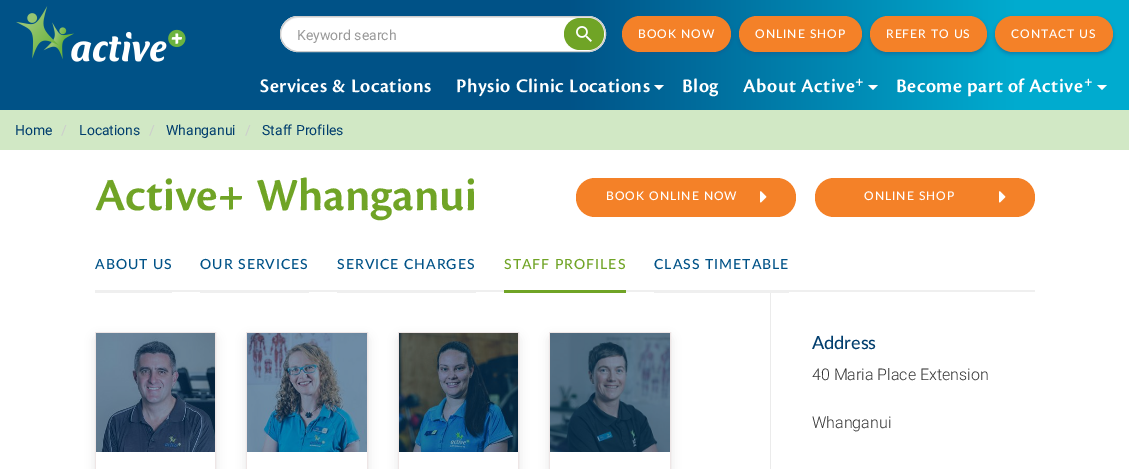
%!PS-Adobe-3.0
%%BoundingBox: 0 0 1129 469
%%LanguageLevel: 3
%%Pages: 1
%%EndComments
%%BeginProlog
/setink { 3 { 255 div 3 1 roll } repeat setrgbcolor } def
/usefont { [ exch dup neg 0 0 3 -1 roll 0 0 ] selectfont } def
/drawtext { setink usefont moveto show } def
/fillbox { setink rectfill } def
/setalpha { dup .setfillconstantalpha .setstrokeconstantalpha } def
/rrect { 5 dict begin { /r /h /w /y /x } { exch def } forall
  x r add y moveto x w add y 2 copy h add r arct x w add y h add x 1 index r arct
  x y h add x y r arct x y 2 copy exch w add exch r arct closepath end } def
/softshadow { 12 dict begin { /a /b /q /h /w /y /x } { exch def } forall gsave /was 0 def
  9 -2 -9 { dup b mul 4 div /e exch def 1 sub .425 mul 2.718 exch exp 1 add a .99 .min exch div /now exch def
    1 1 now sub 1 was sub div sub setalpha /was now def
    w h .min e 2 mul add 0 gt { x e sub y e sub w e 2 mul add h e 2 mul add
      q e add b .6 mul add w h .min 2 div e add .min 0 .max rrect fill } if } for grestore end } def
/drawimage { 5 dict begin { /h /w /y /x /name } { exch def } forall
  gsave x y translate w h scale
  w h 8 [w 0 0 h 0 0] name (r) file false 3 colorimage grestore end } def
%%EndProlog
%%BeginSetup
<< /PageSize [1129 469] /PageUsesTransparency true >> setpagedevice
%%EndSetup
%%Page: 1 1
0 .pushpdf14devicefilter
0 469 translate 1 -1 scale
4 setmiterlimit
0 0 1129 469 255 255 255 fillbox
gsave 0 0 moveto 1129 0 lineto 1129 110 lineto 0 110 lineto closepath clip newpath
<< /ShadingType 2 /ColorSpace /DeviceRGB /Coords [0 55 1129 55] /Extend [true true] /Function << /FunctionType 3 /Domain [0 1] /Functions [<< /FunctionType 2 /Domain [0 1] /C0 [0 0.322 0.529] /C1 [0 0.322 0.529] /N 1 >> << /FunctionType 2 /Domain [0 1] /C0 [0 0.322 0.529] /C1 [0 0.671 0.812] /N 1 >> << /FunctionType 2 /Domain [0 1] /C0 [0 0.671 0.812] /C1 [0 0.671 0.812] /N 1 >>] /Bounds [0.5 0.9] /Encode [0 1 0 1 0 1] >> >> shfill grestore
(assets/img1.rgb) 16 6 170 56 drawimage
280 16 326 36 18 rrect fill
236 236 236 setink
298 18 moveto 588 18 lineto 597 18 605 26 605 35 curveto 605 25 597 17 588 17 curveto 298 17 lineto 289 17 281 25 281 35 curveto 281 26 289 18 298 18 curveto closepath fill
204 204 204 setink
280.5 16.5 325 35 17.5 rrect stroke
(Keyword search) 297 40 /Roboto-Regular 14 153 153 153 drawtext
112 164 38 setink
564 18 40 32 16 rrect fill
(assets/img2.rgb) 576 26 16 16 drawimage
25 83 135 setink
622 18 109 36 18 2 0.5 softshadow
244 129 40 setink
622 16 109 36 18 rrect fill
/Lato-Medium 12 usefont
255 255 255 setink
638 38 moveto 1 0 (BOOK NOW) ashow
25 83 135 setink
739 18 123 36 18 2 0.5 softshadow
244 129 40 setink
739 16 123 36 18 rrect fill
255 255 255 setink
755 38 moveto 1 0 (ONLINE SHOP) ashow
25 83 135 setink
870 18 117 36 18 2 0.5 softshadow
244 129 40 setink
870 16 117 36 18 rrect fill
255 255 255 setink
886 38 moveto 1 0 (REFER TO US) ashow
25 83 135 setink
995 18 118 36 18 2 0.5 softshadow
244 129 40 setink
995 16 118 36 18 rrect fill
255 255 255 setink
1011 38 moveto 1 0 (CONTACT US) ashow
/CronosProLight-SemiBold 20 usefont
260 92 moveto 0.5 0 (Services & Locations) ashow
654 85 moveto 659 90 lineto 664 85 lineto closepath fill
456 92 moveto 0.5 0 (Physio Clinic Locations) ashow
682 92 moveto 0.5 0 (Blog) ashow
868 85 moveto 873 90 lineto 878 85 lineto closepath fill
743 92 moveto 0.5 0 (About Active) ashow
/CronosProLight-SemiBold 15 usefont
855 86 moveto 0.5 0 (+) ashow
1097 85 moveto 1102 90 lineto 1107 85 lineto closepath fill
/CronosProLight-SemiBold 20 usefont
896 92 moveto 0.5 0 (Become part of Active) ashow
/CronosProLight-SemiBold 15 usefont
1084 86 moveto 0.5 0 (+) ashow
0 110 1129 40 209 232 197 fillbox
(Home) 15 135 /Roboto-Regular 14 0 61 109 drawtext
(/) 61 135 /Roboto-Regular 14 204 204 204 drawtext
(Locations) 79 135 /Roboto-Regular 14 0 61 109 drawtext
(/) 149 135 /Roboto-Regular 14 204 204 204 drawtext
(Whanganui) 166 135 /Roboto-Regular 14 0 61 109 drawtext
(/) 245 135 /Roboto-Regular 14 204 204 204 drawtext
(Staff Profiles) 262 135 /Roboto-Regular 14 0 61 109 drawtext
(Active+ Whanganui) 95 210 /CronosProLight-SemiBold 48 112 164 38 drawtext
244 129 40 setink
576 178 220 39 19 rrect fill
/Lato-Medium 12 usefont
255 255 255 setink
606 200 moveto 1 0 (BOOK ONLINE NOW) ashow
(assets/img3.rgb) 760 191 7 12 drawimage
244 129 40 setink
815 178 220 39 19 rrect fill
255 255 255 setink
864 200 moveto 1 0 (ONLINE SHOP) ashow
(assets/img3.rgb) 999 191 7 12 drawimage
172 290 863 2 239 239 239 fillbox
95 290 77 3 239 239 239 fillbox
/Lato-Medium 14 usefont
0 82 135 setink
95 269 moveto 1 0 (ABOUT US) ashow
200 292 109 1 239 239 239 fillbox
0 82 135 setink
200 269 moveto 1 0 (OUR SERVICES) ashow
337 292 139 1 239 239 239 fillbox
0 82 135 setink
337 269 moveto 1 0 (SERVICE CHARGES) ashow
504 290 122 3 112 164 38 fillbox
504 269 moveto 1 0 (STAFF PROFILES) ashow
770 292 1 177 235 235 235 fillbox
654 292 135 1 239 239 239 fillbox
0 82 135 setink
654 269 moveto 1 0 (CLASS TIMETABLE) ashow
0 0 0 setink
95 337 121 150 3 5 0.1 softshadow
238 230 230 setink
95.5 332.5 120 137 rectstroke
96 333 119 119 0 61 109 fillbox
(assets/img4.rgb) 96 333 119 119 drawimage
96 452 119 17 255 255 255 fillbox
0 0 0 setink
246 337 122 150 3 5 0.1 softshadow
238 230 230 setink
246.5 332.5 121 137 rectstroke
247 333 120 119 0 61 109 fillbox
(assets/img5.rgb) 247 333 120 119 drawimage
247 452 120 17 255 255 255 fillbox
0 0 0 setink
398 337 121 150 3 5 0.1 softshadow
238 230 230 setink
398.5 332.5 120 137 rectstroke
399 333 119 119 0 61 109 fillbox
(assets/img6.rgb) 399 333 119 119 drawimage
399 452 119 17 255 255 255 fillbox
0 0 0 setink
549 337 122 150 3 5 0.1 softshadow
238 230 230 setink
549.5 332.5 121 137 rectstroke
550 333 120 119 0 61 109 fillbox
(assets/img7.rgb) 550 333 120 119 drawimage
550 452 120 17 255 255 255 fillbox
(Address) 812 349 /Lato-Medium 18 0 61 109 drawtext
(40 Maria Place Extension) 812 380 /Roboto-Light 16 51 51 51 drawtext
(Whanganui) 812 428 /Roboto-Light 16 51 51 51 drawtext
.poppdf14devicefilter showpage
%%EOF
